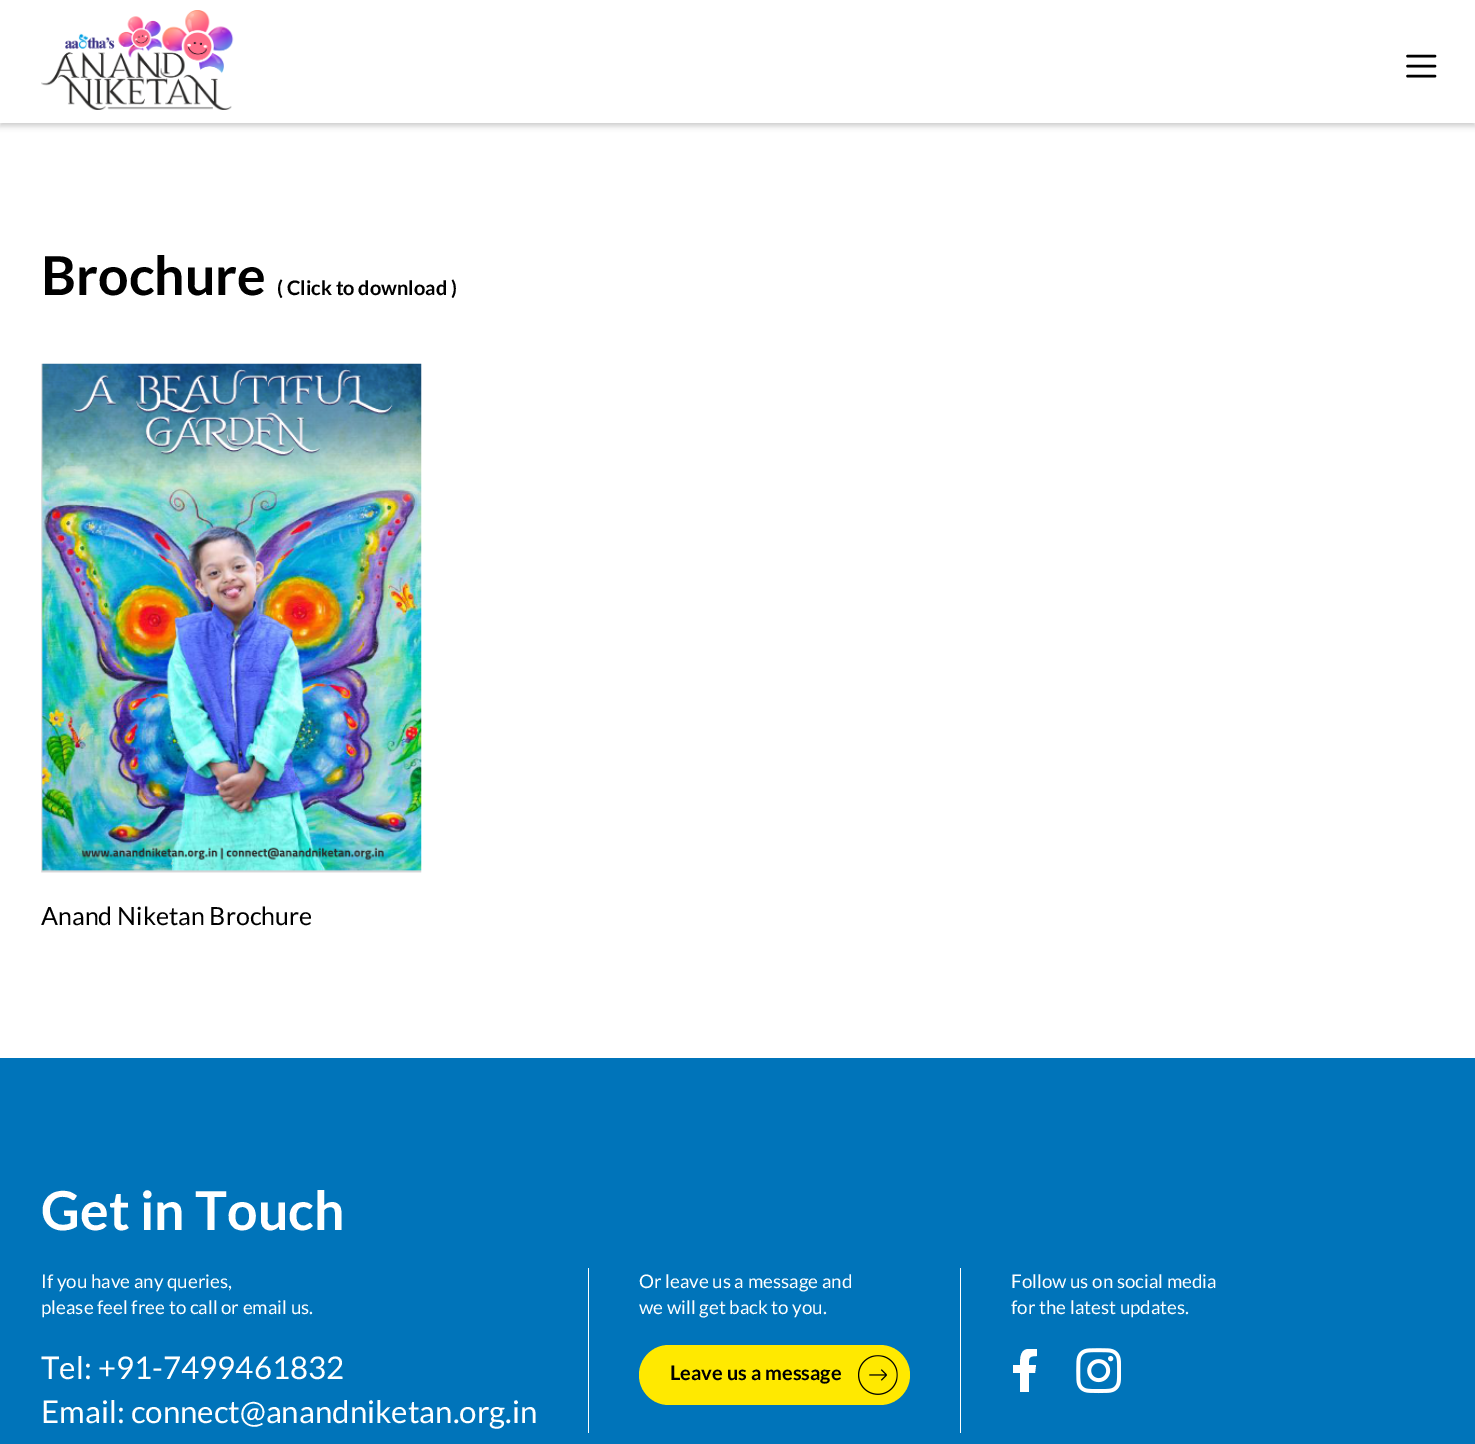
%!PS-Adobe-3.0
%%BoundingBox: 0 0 1475 1444
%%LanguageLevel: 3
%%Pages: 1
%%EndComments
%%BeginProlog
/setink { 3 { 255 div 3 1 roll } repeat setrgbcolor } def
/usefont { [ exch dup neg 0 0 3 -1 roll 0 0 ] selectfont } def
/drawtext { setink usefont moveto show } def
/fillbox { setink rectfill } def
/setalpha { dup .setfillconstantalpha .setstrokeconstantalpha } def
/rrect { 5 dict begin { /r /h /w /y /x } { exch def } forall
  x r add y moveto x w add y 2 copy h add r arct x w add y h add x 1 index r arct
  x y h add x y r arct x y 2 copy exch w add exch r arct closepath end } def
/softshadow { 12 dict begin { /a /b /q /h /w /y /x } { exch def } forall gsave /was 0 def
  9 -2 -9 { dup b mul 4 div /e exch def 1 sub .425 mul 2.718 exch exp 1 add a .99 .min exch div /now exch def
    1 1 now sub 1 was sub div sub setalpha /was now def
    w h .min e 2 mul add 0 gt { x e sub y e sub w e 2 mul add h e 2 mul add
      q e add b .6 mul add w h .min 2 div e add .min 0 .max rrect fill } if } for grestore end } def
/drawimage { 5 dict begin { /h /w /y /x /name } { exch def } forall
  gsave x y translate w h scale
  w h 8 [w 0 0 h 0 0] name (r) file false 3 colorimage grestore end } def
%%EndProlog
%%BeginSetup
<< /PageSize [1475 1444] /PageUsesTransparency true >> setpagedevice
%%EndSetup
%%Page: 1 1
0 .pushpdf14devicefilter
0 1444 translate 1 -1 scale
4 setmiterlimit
0 0 1475 1444 255 255 255 fillbox
0 0 0 setink
0 4 1475 122 0 3 0.2 softshadow
0 0 1475 123 255 255 255 fillbox
(assets/img1.rgb) 41 10 193 100 drawimage
0 0 0 setink
2.5 setlinewidth
1 setlinecap
1407.5 56 moveto 1435 56 lineto 1407.5 66 moveto 1435 66 lineto 1407.5 76 moveto 1435 76 lineto stroke
(Brochure) 41 295 /Lato-Bold 53.75 0 0 0 drawtext
(\( Click to download \)) 277 295 /Lato-Bold 20 0 0 0 drawtext
(assets/img2.rgb) 41 363 381 510 drawimage
(Anand Niketan Brochure) 41 925 /Lato-Regular 25 0 0 0 drawtext
0 1058 1475 386 0 116 186 fillbox
(Get in Touch) 41 1230 /Lato-Bold 53.75 255 255 255 drawtext
588 1268 1 165 255 255 255 fillbox
(If you have any queries,) 41 1288 /Lato-Regular 18.75 255 255 255 drawtext
(please feel free to call or email us.) 41 1314 /Lato-Regular 18.75 255 255 255 drawtext
(Tel: +91-7499461832) 41 1379 /Lato-Regular 31.25 255 255 255 drawtext
(Email: connect@anandniketan.org.in) 41 1423 /Lato-Regular 31.25 255 255 255 drawtext
960 1268 1 165 255 255 255 fillbox
(Or leave us a message and) 639 1288 /Lato-Regular 18.75 255 255 255 drawtext
(we will get back to you.) 639 1314 /Lato-Regular 18.75 255 255 255 drawtext
255 233 0 setink
639 1345 271 60 30 rrect fill
(Leave us a message) 670 1380 /Lato-Bold 20 0 0 0 drawtext
(assets/img3.rgb) 858 1355 40 40 drawimage
(Follow us on social media) 1011 1288 /Lato-Regular 18.75 255 255 255 drawtext
(for the latest updates.) 1011 1314 /Lato-Regular 18.75 255 255 255 drawtext
gsave
1011 1349 28 44 rectclip
1035 1373 moveto 1036 1365 lineto 1029 1365 lineto 1029 1358 1028 1356 1037 1356 curveto 1037 1349 lineto 1022 1347 1020 1352 1020 1365 curveto 1013 1365 lineto 1013 1373 lineto 1020 1373 lineto 1020 1392 lineto 1029 1392 lineto 1029 1373 lineto closepath fill
grestore
(assets/img4.rgb) 1076 1348 45 46 drawimage
.poppdf14devicefilter showpage
%%EOF
